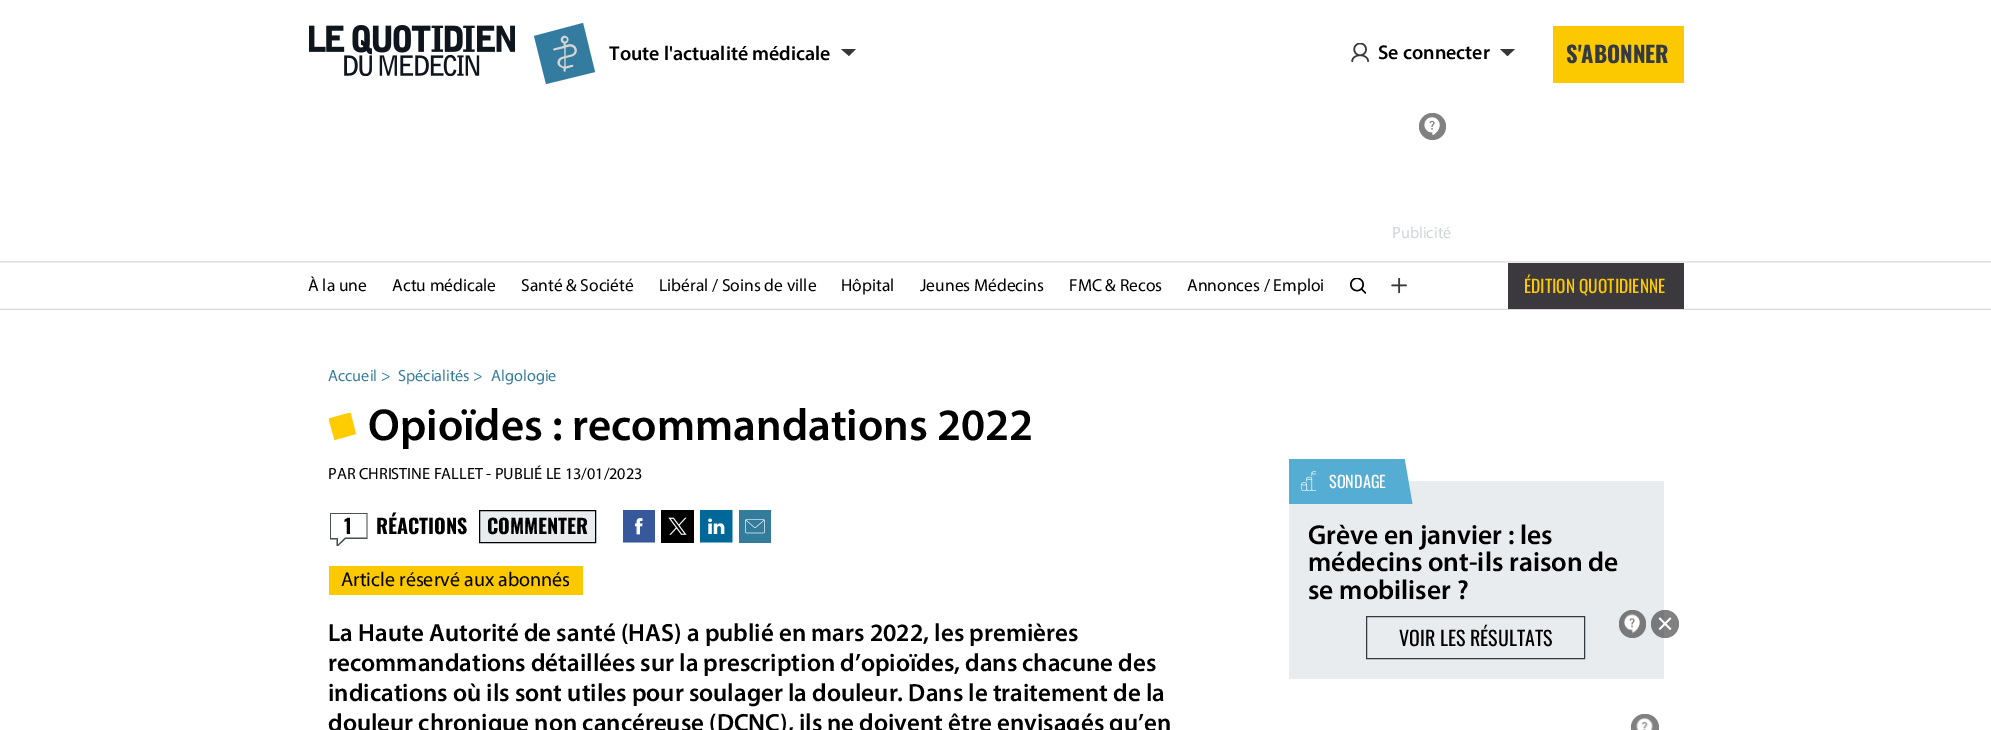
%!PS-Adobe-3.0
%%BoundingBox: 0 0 1991 730
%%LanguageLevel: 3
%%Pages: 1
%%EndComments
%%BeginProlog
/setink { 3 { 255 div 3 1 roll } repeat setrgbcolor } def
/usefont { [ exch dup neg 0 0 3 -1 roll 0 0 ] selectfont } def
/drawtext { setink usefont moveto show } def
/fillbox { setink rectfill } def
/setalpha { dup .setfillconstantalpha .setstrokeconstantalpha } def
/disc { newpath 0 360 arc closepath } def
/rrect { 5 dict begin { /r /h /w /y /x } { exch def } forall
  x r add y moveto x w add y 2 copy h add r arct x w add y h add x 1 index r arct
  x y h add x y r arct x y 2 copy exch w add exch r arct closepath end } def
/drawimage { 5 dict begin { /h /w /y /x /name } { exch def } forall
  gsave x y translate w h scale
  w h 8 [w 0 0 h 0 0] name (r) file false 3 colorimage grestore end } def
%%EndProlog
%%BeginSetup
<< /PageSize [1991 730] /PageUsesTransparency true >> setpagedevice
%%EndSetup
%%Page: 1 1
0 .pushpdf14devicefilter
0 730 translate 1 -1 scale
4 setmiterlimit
0 0 1991 730 255 255 255 fillbox
(assets/img1.rgb) 309 25 206 51 drawimage
51 124 159 setink
534 36 moveto 583 23 lineto 595 72 lineto 546 84 lineto closepath fill
(assets/img2.rgb) 553 35 24 37 drawimage
(Toute l'actualité médicale) 609 60 /Myriad-SemiBold 20 0 0 0 drawtext
55 54 59 setink
841 49 moveto 856 49 lineto 849 56 lineto closepath fill
(assets/img3.rgb) 1351 43 18 20 drawimage
(Se connecter) 1378 59 /Myriad-SemiBold 20 0 0 0 drawtext
55 54 59 setink
1500 49 moveto 1515 49 lineto 1507.5 56 lineto closepath fill
1553 26 131 57 252 201 0 fillbox
(S'ABONNER) 1566 63 /Oswald-Bold 22.5 52 58 64 drawtext
129 129 129 setink
1432.5 126.5 13.5 disc fill
(assets/img4.rgb) 1424 117 16 19 drawimage
(Publicité) 1392 238 /Myriad-Regular 16.25 206 212 218 drawtext
(assets/img5.rgb) 0 261 1991 49 drawimage
(À la une) 308 291 /Myriad-Regular 17.5 0 0 0 drawtext
(Actu médicale) 392 291 /Myriad-Regular 17.5 0 0 0 drawtext
(Santé & Société) 521 291 /Myriad-Regular 17.5 0 0 0 drawtext
(Libéral / Soins de ville) 659 291 /Myriad-Regular 17.5 0 0 0 drawtext
(Hôpital) 841 291 /Myriad-Regular 17.5 0 0 0 drawtext
(Jeunes Médecins) 920 291 /Myriad-Regular 17.5 0 0 0 drawtext
(FMC & Recos) 1069 291 /Myriad-Regular 17.5 0 0 0 drawtext
(Annonces / Emploi) 1187 291 /Myriad-Regular 17.5 0 0 0 drawtext
(assets/img6.rgb) 1350 278 16 16 drawimage
(assets/img7.rgb) 1391 278 16 16 drawimage
1508 263 176 46 59 57 62 fillbox
(ÉDITION QUOTIDIENNE) 1524 293 /Oswald-Regular 17.5 252 201 0 drawtext
(Accueil >) 328 381 /Myriad-Regular 16.25 51 124 156 drawtext
(Spécialités >) 398 381 /Myriad-Regular 16.25 51 124 156 drawtext
(Algologie) 491 381 /Myriad-Regular 16.25 51 124 156 drawtext
gsave
329 413 27 27 rectclip
254 204 0 setink
328.5 418.5 moveto 350.5 412.5 lineto 356 434 lineto 334.5 440 lineto closepath fill
grestore
(Opioïdes : recommandations 2022) 368 440 /Myriad-SemiBold 45 0 0 0 drawtext
(PAR CHRISTINE FALLET - PUBLIÉ LE 13/01/2023) 328 479 /Myriad-Regular 16.25 0 0 0 drawtext
gsave
329 513 40 33 rectclip
73 80 87 setink
336.5 547.5 moveto 336.5 539.5 lineto 330 539.5 lineto 330 512.5 lineto 367.5 512.5 lineto 367.5 539 lineto 345.5 539 lineto closepath 331 538 moveto 338 538 lineto 338 544.5 lineto 345 537.5 lineto 366.5 537.5 lineto 366.5 514 lineto 331 514 lineto closepath fill
grestore
(1) 344 534 /Oswald-Bold 20 0 0 0 drawtext
(RÉACTIONS) 376 534 /Oswald-Bold 20 0 0 0 drawtext
233 236 239 setink
479.5 510.5 moveto 595.5 510.5 lineto 595.5 542.5 lineto 479.5 542.5 lineto closepath gsave fill grestore
0 0 0 setink
stroke
(COMMENTER) 487 534 /Oswald-Bold 20 0 0 0 drawtext
(assets/img8.rgb) 623 510 32 33 drawimage
(assets/img9.rgb) 661 510 33 33 drawimage
(assets/img10.rgb) 700 510 33 33 drawimage
(assets/img11.rgb) 739 510 32 33 drawimage
329 566 254 29 252 201 0 fillbox
(Article réservé aux abonnés) 341 586 /Myriad-Regular 20 0 0 0 drawtext
(La Haute Autorité de santé \(HAS\) a publié en mars 2022, les premières) 328 641 /Myriad-SemiBold 25 0 0 0 drawtext
(recommandations détaillées sur la prescription d’opioïdes, dans chacune des) 328 671 /Myriad-SemiBold 25 0 0 0 drawtext
(indications où ils sont utiles pour soulager la douleur. Dans le traitement de la) 328 701 /Myriad-SemiBold 25 0 0 0 drawtext
(douleur chronique non cancéreuse \(DCNC\), ils ne doivent être envisagés qu’en) 328 731 /Myriad-SemiBold 25 0 0 0 drawtext
1289 459 108 45 86 173 212 fillbox
(assets/img12.rgb) 1301 471 15 20 drawimage
(SONDAGE) 1329 488 /Oswald-Regular 16.25 255 255 255 drawtext
1408 481 256 23 233 236 239 fillbox
gsave
1396 459 19 45 rectclip
86 173 212 setink
1415 519 moveto 1397 519 lineto 1397 444 lineto 1402 444 lineto closepath fill
grestore
1289 504 375 175 233 236 239 fillbox
(Grève en janvier : les) 1308 544 /Myriad-SemiBold 27.5 0 0 0 drawtext
(médecins ont-ils raison de) 1308 571 /Myriad-SemiBold 27.5 0 0 0 drawtext
(se mobiliser ?) 1308 599 /Myriad-SemiBold 27.5 0 0 0 drawtext
52 58 64 setink
1366.5 616.5 218 42 rectstroke
(VOIR LES RÉSULTATS) 1399 646 /Oswald-Regular 20 0 0 0 drawtext
129 129 129 setink
1631 714 28 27 13.5 rrect fill
(assets/img13.rgb) 1636 718 17 12 drawimage
120 121 123 setink
1619 610 27 28 13.5 rrect fill
(assets/img14.rgb) 1624 614 16 20 drawimage
0.6 setalpha
45 45 45 setink
1665 624 14 disc fill
1 setalpha
(assets/img15.rgb) 1658 617 14 13 drawimage
.poppdf14devicefilter showpage
%%EOF
